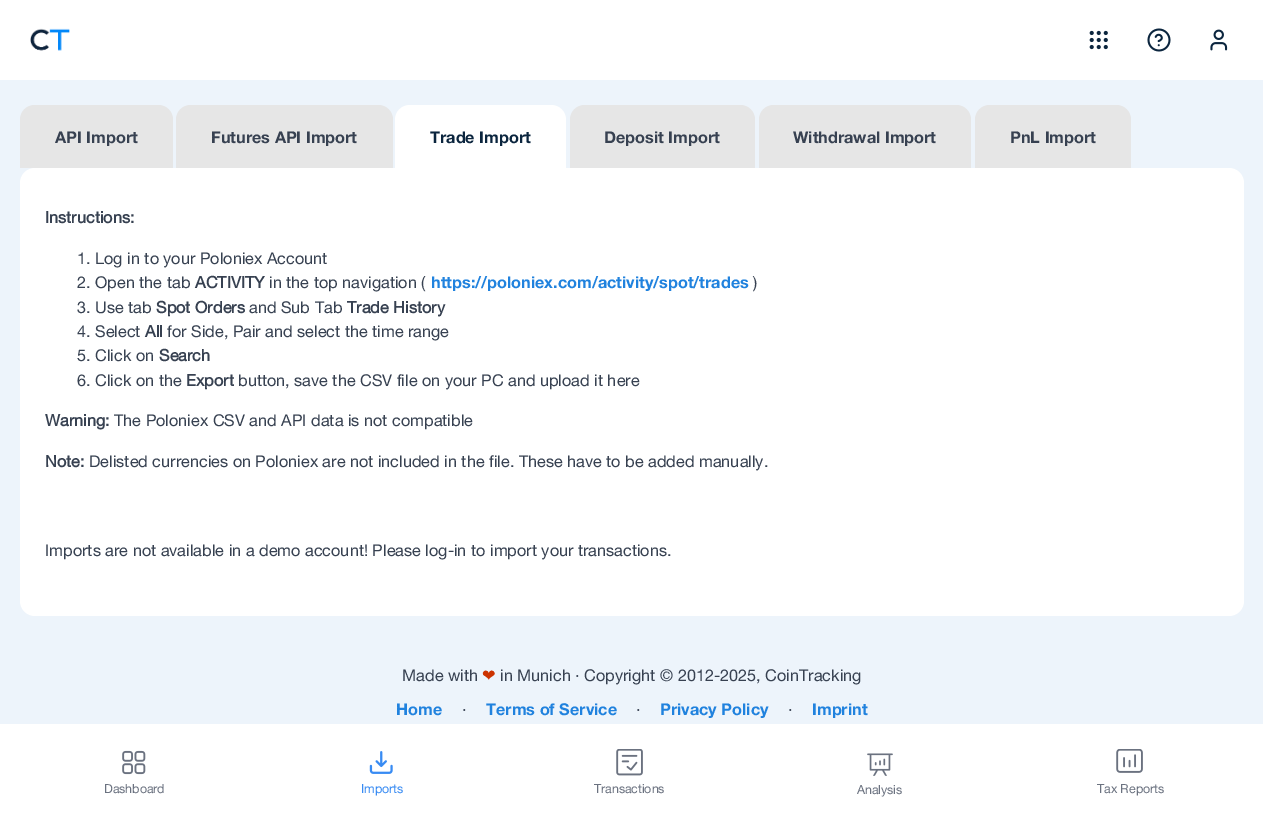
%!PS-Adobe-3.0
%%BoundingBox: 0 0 1263 823
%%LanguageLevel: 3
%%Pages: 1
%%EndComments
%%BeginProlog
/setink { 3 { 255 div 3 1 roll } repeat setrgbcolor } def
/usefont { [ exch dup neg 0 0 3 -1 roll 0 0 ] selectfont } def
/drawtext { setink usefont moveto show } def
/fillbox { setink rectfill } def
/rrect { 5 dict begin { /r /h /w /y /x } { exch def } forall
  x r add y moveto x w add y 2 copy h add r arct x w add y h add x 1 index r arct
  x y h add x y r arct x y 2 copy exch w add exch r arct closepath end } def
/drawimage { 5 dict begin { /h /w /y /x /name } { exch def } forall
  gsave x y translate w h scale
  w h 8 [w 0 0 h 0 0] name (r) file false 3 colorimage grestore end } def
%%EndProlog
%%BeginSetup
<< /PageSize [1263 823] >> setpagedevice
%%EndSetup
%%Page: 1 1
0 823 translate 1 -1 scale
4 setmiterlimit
0 0 1263 823 237 244 251 fillbox
230 230 230 setink
35 105 moveto 158 105 lineto 166.5 105 173 111.5 173 120 curveto 173 168 lineto 20 168 lineto 20 120 lineto 20 111.5 26.5 105 35 105 curveto closepath fill
(API Import) 55 143 /HelveticaNeue-Bold 16.25 55 65 81 drawtext
230 230 230 setink
191 105 moveto 378 105 lineto 386.5 105 393 111.5 393 120 curveto 393 168 lineto 176 168 lineto 176 120 lineto 176 111.5 182.5 105 191 105 curveto closepath fill
(Futures API Import) 211 143 /HelveticaNeue-Bold 16.25 55 65 81 drawtext
255 255 255 setink
410 105 moveto 551 105 lineto 559.5 105 566 111.5 566 120 curveto 566 168 lineto 395 168 lineto 395 120 lineto 395 111.5 401.5 105 410 105 curveto closepath fill
(Trade Import) 430 143 /HelveticaNeue-Bold 16.25 11 37 62 drawtext
230 230 230 setink
585 105 moveto 740 105 lineto 748.5 105 755 111.5 755 120 curveto 755 168 lineto 570 168 lineto 570 120 lineto 570 111.5 576.5 105 585 105 curveto closepath fill
(Deposit Import) 604 143 /HelveticaNeue-Bold 16.25 55 65 81 drawtext
230 230 230 setink
774 105 moveto 956 105 lineto 964.5 105 971 111.5 971 120 curveto 971 168 lineto 759 168 lineto 759 120 lineto 759 111.5 765.5 105 774 105 curveto closepath fill
(Withdrawal Import) 793 143 /HelveticaNeue-Bold 16.25 55 65 81 drawtext
230 230 230 setink
990 105 moveto 1116 105 lineto 1124.5 105 1131 111.5 1131 120 curveto 1131 168 lineto 975 168 lineto 975 120 lineto 975 111.5 981.5 105 990 105 curveto closepath fill
(PnL Import) 1010 143 /HelveticaNeue-Bold 16.25 55 65 81 drawtext
255 255 255 setink
20 168 1224 448 15 rrect fill
(Instructions:) 45 223 /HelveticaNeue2-Bold 16.25 55 65 81 drawtext
(1. Log in to your Poloniex Account) 77 264 /HelveticaNeue-Regular 16.25 55 65 81 drawtext
(2. Open the tab) 77 288 /HelveticaNeue-Regular 16.25 55 65 81 drawtext
(ACTIVITY) 195 288 /HelveticaNeue2-Bold 16.25 55 65 81 drawtext
(in the top navigation \() 269 288 /HelveticaNeue-Regular 16.25 55 65 81 drawtext
(https://poloniex.com/activity/spot/trades) 431 288 /HelveticaNeue-Bold 16.25 32 130 222 drawtext
(\)) 753 288 /HelveticaNeue-Regular 16.25 55 65 81 drawtext
(3. Use tab) 77 313 /HelveticaNeue-Regular 16.25 55 65 81 drawtext
(Spot Orders) 156 313 /HelveticaNeue2-Bold 16.25 55 65 81 drawtext
(and Sub Tab) 249 313 /HelveticaNeue-Regular 16.25 55 65 81 drawtext
(Trade History) 347 313 /HelveticaNeue2-Bold 16.25 55 65 81 drawtext
(4. Select) 77 337 /HelveticaNeue-Regular 16.25 55 65 81 drawtext
(All) 145 337 /HelveticaNeue2-Bold 16.25 55 65 81 drawtext
(for Side, Pair and select the time range) 167 337 /HelveticaNeue-Regular 16.25 55 65 81 drawtext
(5. Click on) 77 361 /HelveticaNeue-Regular 16.25 55 65 81 drawtext
(Search) 159 361 /HelveticaNeue2-Bold 16.25 55 65 81 drawtext
(6. Click on the) 77 386 /HelveticaNeue-Regular 16.25 55 65 81 drawtext
(Export) 186 386 /HelveticaNeue2-Bold 16.25 55 65 81 drawtext
(button, save the CSV file on your PC and upload it here) 238 386 /HelveticaNeue-Regular 16.25 55 65 81 drawtext
(Warning:) 45 426 /HelveticaNeue2-Bold 16.25 55 65 81 drawtext
(The Poloniex CSV and API data is not compatible) 114 426 /HelveticaNeue-Regular 16.25 55 65 81 drawtext
(Note:) 45 467 /HelveticaNeue2-Bold 16.25 55 65 81 drawtext
(Delisted currencies on Poloniex are not included in the file. These have to be added manually.) 89 467 /HelveticaNeue-Regular 16.25 55 65 81 drawtext
(Imports are not available in a demo account! Please log-in to import your transactions.) 45 556 /HelveticaNeue-Regular 16.25 55 65 81 drawtext
(Made with) 402 681 /HelveticaNeue-Regular 16.25 55 65 81 drawtext
(❤) 482 681 /DejaVuSans-Regular 16.25 204 51 0 drawtext
(in Munich · Copyright © 2012-2025, CoinTracking) 500 681 /HelveticaNeue-Regular 16.25 55 65 81 drawtext
(Home) 396 715 /HelveticaNeue-Bold 16.25 32 130 222 drawtext
(·) 462 715 /HelveticaNeue-Regular 16.25 55 65 81 drawtext
(Terms of Service) 486 715 /HelveticaNeue-Bold 16.25 32 130 222 drawtext
(·) 636 715 /HelveticaNeue-Regular 16.25 55 65 81 drawtext
(Privacy Policy) 660 715 /HelveticaNeue-Bold 16.25 32 130 222 drawtext
(·) 788 715 /HelveticaNeue-Regular 16.25 55 65 81 drawtext
(Imprint) 812 715 /HelveticaNeue-Bold 16.25 32 130 222 drawtext
0 0 1263 80 255 255 255 fillbox
(assets/img1.rgb) 30 28 40 23 drawimage
(assets/img2.rgb) 1089 30 19 20 drawimage
(assets/img3.rgb) 1147 28 24 24 drawimage
(assets/img4.rgb) 1210 29 18 22 drawimage
0 724 1263 99 255 255 255 fillbox
(assets/img5.rgb) 122 750 24 25 drawimage
/HelveticaNeue-Regular 12.5 usefont
107 114 128 setink
104 793 moveto -0.1 0 (Dashboard) ashow
(assets/img6.rgb) 369 751 24 23 drawimage
56 139 243 setink
361 793 moveto -0.1 0 (Imports) ashow
(assets/img7.rgb) 616 749 27 27 drawimage
107 114 128 setink
594 793 moveto -0.1 0 (Transactions) ashow
(assets/img8.rgb) 867 753 26 23 drawimage
857 794 moveto -0.1 0 (Analysis) ashow
(assets/img9.rgb) 1116 749 27 24 drawimage
1097 793 moveto -0.1 0 (Tax Reports) ashow
showpage
%%EOF
